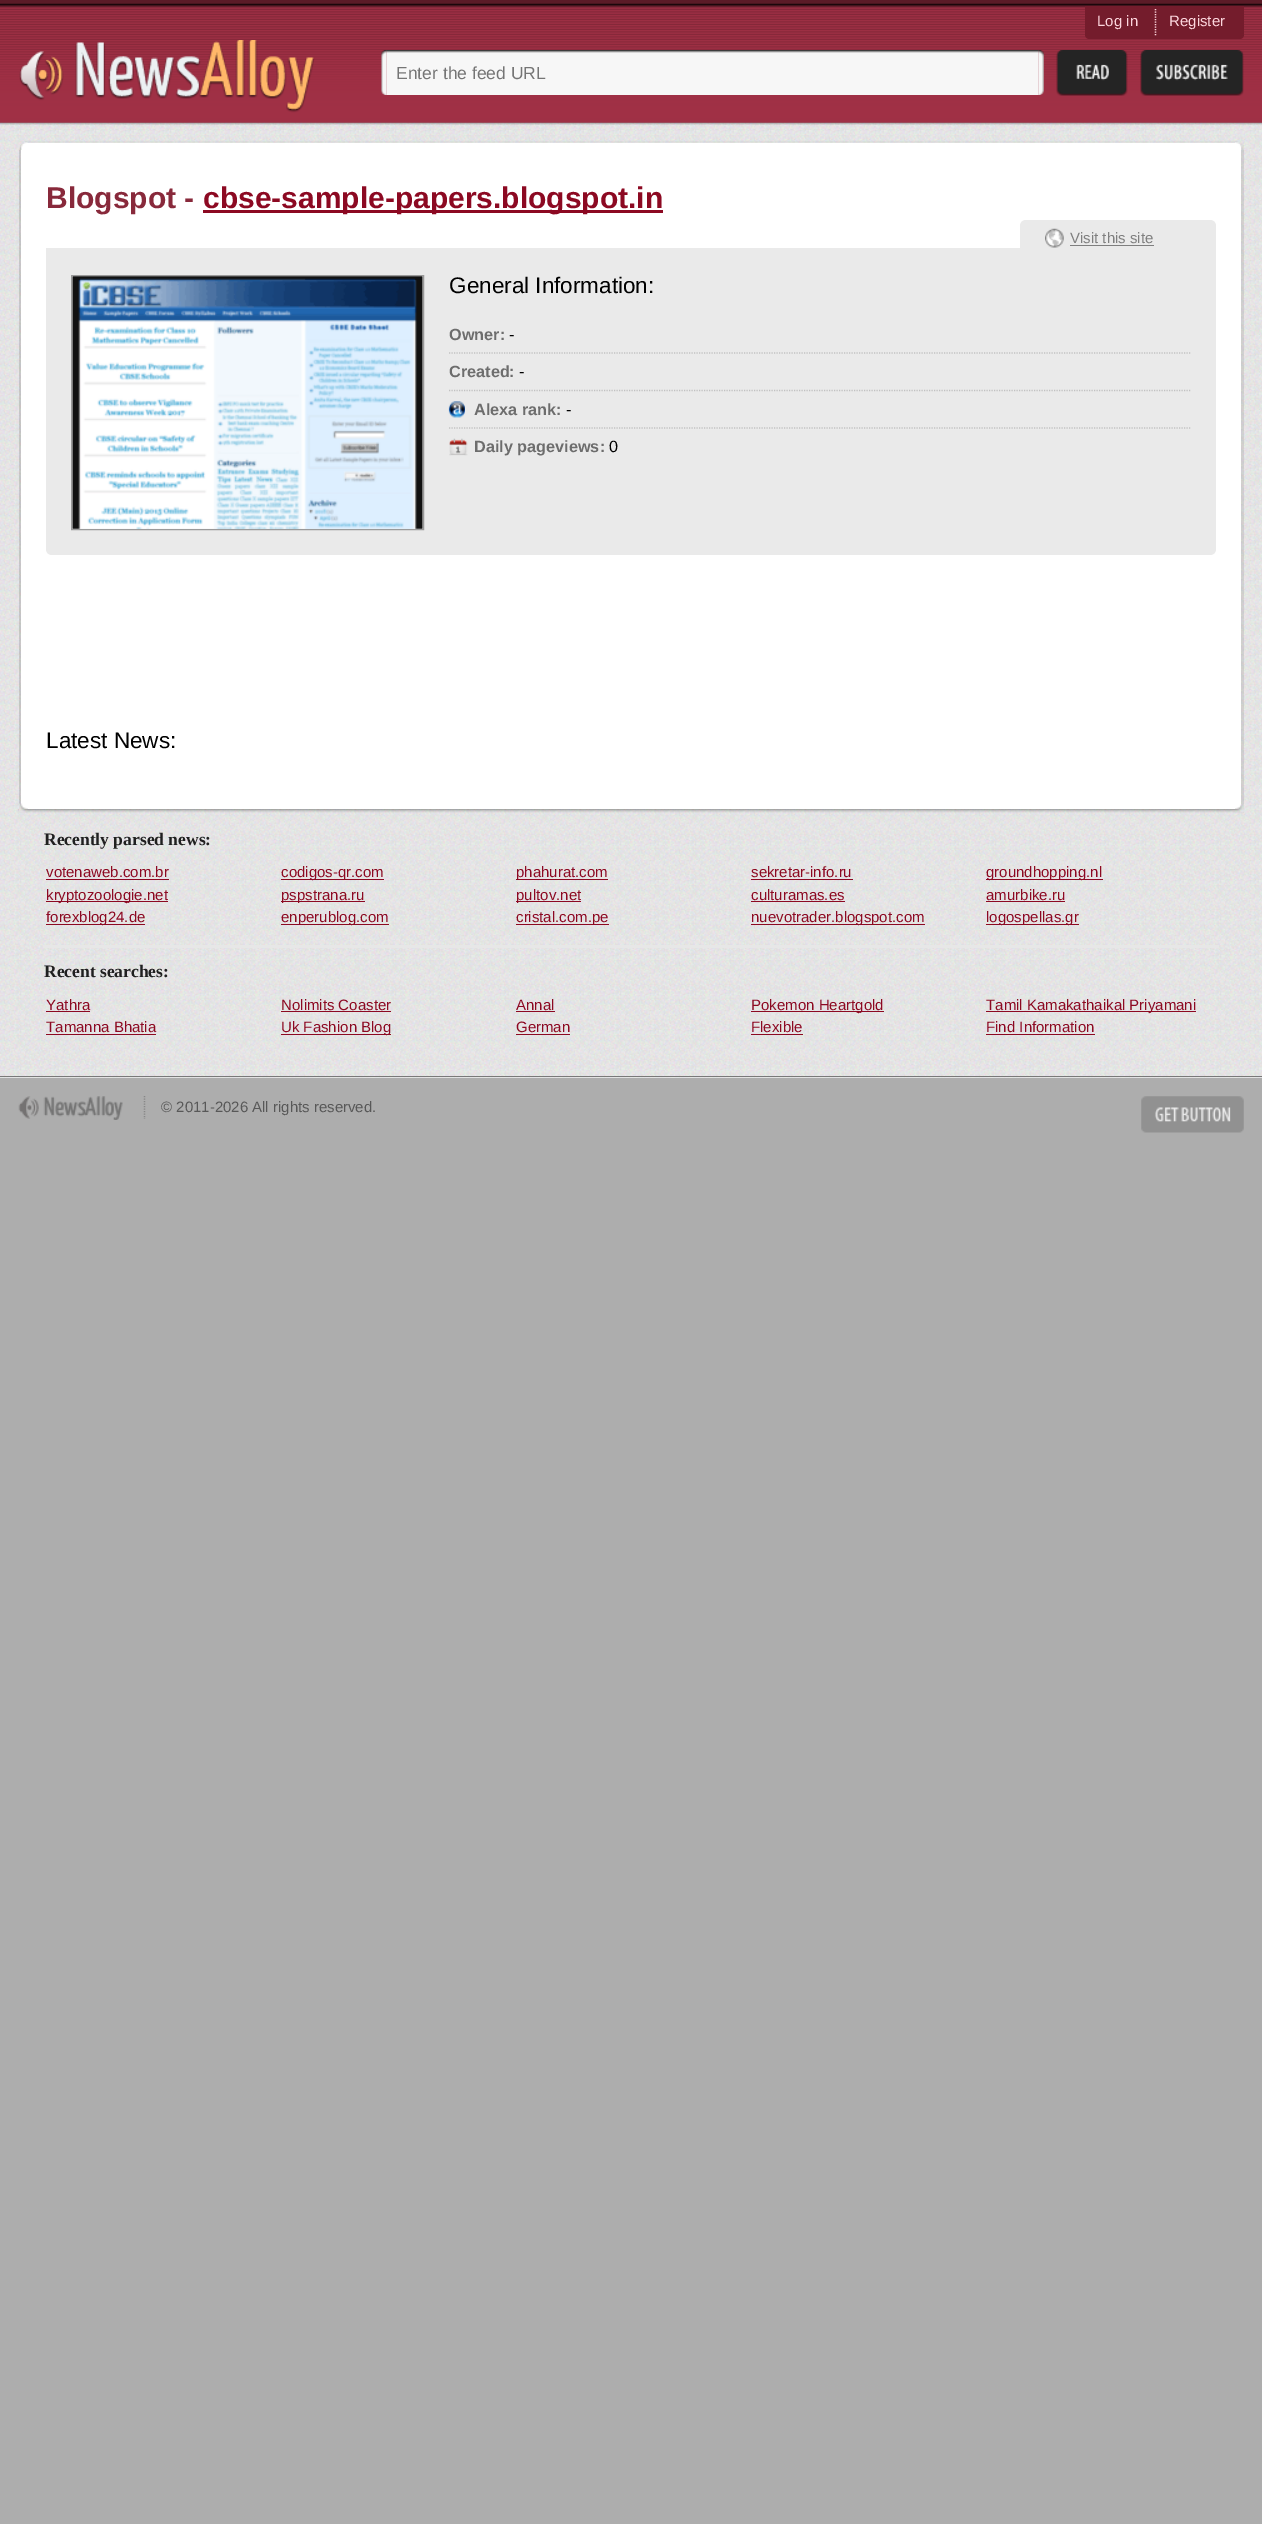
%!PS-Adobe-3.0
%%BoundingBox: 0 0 1262 2524
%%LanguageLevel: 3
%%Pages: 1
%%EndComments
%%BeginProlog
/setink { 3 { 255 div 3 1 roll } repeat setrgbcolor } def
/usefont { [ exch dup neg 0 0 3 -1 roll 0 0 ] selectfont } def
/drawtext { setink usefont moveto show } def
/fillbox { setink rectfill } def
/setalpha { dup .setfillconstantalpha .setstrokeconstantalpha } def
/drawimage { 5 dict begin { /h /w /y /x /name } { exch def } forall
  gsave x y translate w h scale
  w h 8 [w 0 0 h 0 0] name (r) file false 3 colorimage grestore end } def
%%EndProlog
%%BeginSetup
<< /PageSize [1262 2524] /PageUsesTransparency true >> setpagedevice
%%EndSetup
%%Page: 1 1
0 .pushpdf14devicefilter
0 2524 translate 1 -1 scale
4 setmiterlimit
0 0 1262 2524 173 173 173 fillbox
0 1077 1262 1 226 226 226 fillbox
(assets/img8.rgb) 0 122 1262 956 drawimage
(assets/img1.rgb) 0 0 1262 125 drawimage
116 28 44 setink
1085 6 moveto 1244 6 lineto 1244 35 lineto 1244 37 1242 39 1240 39 curveto 1089 39 lineto 1087 39 1085 37 1085 35 curveto closepath fill
252 214 221 setink
1.2 setlinewidth
[1.25 1.25] 0 setdash
1155.5 9 moveto 1155.5 36 lineto stroke
(Log in) 1097 26 /LiberationSans-Regular 15 252 214 221 drawtext
(Register) 1169 26 /LiberationSans-Regular 15 252 214 221 drawtext
(assets/img2.rgb) 19 40 296 73 drawimage
(assets/img3.rgb) 381 50 6 45 drawimage
(assets/img4.rgb) 1038 50 6 45 drawimage
(assets/img5.rgb) 386 50 653 45 drawimage
(Enter the feed URL) 396 79 /LiberationSans-Regular 17.5 117 117 117 drawtext
(assets/img6.rgb) 1056 50 72 46 drawimage
(assets/img7.rgb) 1140 50 104 46 drawimage
0 1076 1262 1 121 121 121 fillbox
(assets/img9.rgb) 19 141 1225 2 drawimage
0.09 setalpha
1241 142 3 671 0 0 0 fillbox
1 setalpha
(assets/img10.rgb) 18 809 1223 4 drawimage
0.13 setalpha
19 142 2 667 0 0 0 fillbox
1 setalpha
21 143 1220 666 255 255 255 fillbox
(assets/img11.rgb) 18 141 10 9 drawimage
(assets/img12.rgb) 1235 141 9 9 drawimage
(assets/img13.rgb) 1243 141 1 4 drawimage
(Blogspot -) 46 208 /LiberationSans-Bold 30 136 41 59 drawtext
203 210 460 3 140 9 34 fillbox
(cbse-sample-papers.blogspot.in) 203 208 /LiberationSans-Bold 30 140 9 34 drawtext
46 248 974 2 234 234 234 fillbox
46 250 moveto 1216 250 lineto 1216 549 lineto 1216 552.5 1213.5 555 1210 555 curveto 52 555 lineto 48.5 555 46 552.5 46 549 curveto closepath fill
1026 220 moveto 1210 220 lineto 1213.5 220 1216 222.5 1216 226 curveto 1216 254 lineto 1020 254 lineto 1020 226 lineto 1020 222.5 1022.5 220 1026 220 curveto closepath fill
(assets/img14.rgb) 1045 228 19 20 drawimage
(Visit this site) 1070 243 /LiberationSans-Regular 15 127 127 127 drawtext
1070 245 84 1 127 127 127 fillbox
154 154 154 setink
1 setlinewidth
[] 0 setdash
71.5 275.5 352 254 rectstroke
(assets/img15.rgb) 72 276 351 253 drawimage
(General Information:) 449 293 /LiberationSans-Regular 22.5 0 0 0 drawtext
193 193 193 setink
1.2 setlinewidth
[1.25 1.25] 0 setdash
449 353 moveto 1191 353 lineto stroke
(Owner:) 449 340 /LiberationSans-Bold 16.25 109 109 109 drawtext
(-) 509 340 /LiberationSans-Regular 16.25 0 0 0 drawtext
193 193 193 setink
449 390.5 moveto 1191 390.5 lineto stroke
(Created:) 449 377 /LiberationSans-Bold 16.25 109 109 109 drawtext
(-) 519 377 /LiberationSans-Regular 16.25 0 0 0 drawtext
(assets/img16.rgb) 448 401 17 17 drawimage
193 193 193 setink
449 428 moveto 1191 428 lineto stroke
(Alexa rank:) 474 415 /LiberationSans-Bold 16.25 109 109 109 drawtext
(-) 566 415 /LiberationSans-Regular 16.25 0 0 0 drawtext
(assets/img17.rgb) 449 438 19 18 drawimage
(Daily pageviews:) 474 452 /LiberationSans-Bold 16.25 109 109 109 drawtext
(0) 609 452 /LiberationSans-Regular 16.25 0 0 0 drawtext
(Latest News:) 46 748 /LiberationSans-Regular 22.5 0 0 0 drawtext
(assets/img18.rgb) 19 803 9 10 drawimage
(assets/img19.rgb) 19 803 9 6 drawimage
(assets/img20.rgb) 1235 804 9 9 drawimage
(assets/img21.rgb) 1241 809 3 4 drawimage
(Recently parsed news:) 44 845 /LiberationSerif-Bold 17.5 32 32 32 drawtext
43 945 1176 3 231 231 231 fillbox
(votenaweb.com.br) 46 877 /LiberationSans-Regular 15 140 9 34 drawtext
46 879 123 1 140 9 34 fillbox
281 879 103 1 140 9 34 fillbox
(codigos-qr.com) 281 877 /LiberationSans-Regular 15 140 9 34 drawtext
516 879 92 1 140 9 34 fillbox
(phahurat.com) 516 877 /LiberationSans-Regular 15 140 9 34 drawtext
(sekretar-info.ru) 751 877 /LiberationSans-Regular 15 140 9 34 drawtext
751 879 102 1 140 9 34 fillbox
986 879 117 1 140 9 34 fillbox
(groundhopping.nl) 986 877 /LiberationSans-Regular 15 140 9 34 drawtext
46 901 122 1 140 9 34 fillbox
(kryptozoologie.net) 46 900 /LiberationSans-Regular 15 140 9 34 drawtext
281 901 84 1 140 9 34 fillbox
(pspstrana.ru) 281 900 /LiberationSans-Regular 15 140 9 34 drawtext
516 901 65 1 140 9 34 fillbox
(pultov.net) 516 900 /LiberationSans-Regular 15 140 9 34 drawtext
(culturamas.es) 751 900 /LiberationSans-Regular 15 140 9 34 drawtext
751 901 94 1 140 9 34 fillbox
(amurbike.ru) 986 900 /LiberationSans-Regular 15 140 9 34 drawtext
986 901 79 1 140 9 34 fillbox
46 924 99 1 140 9 34 fillbox
(forexblog24.de) 46 922 /LiberationSans-Regular 15 140 9 34 drawtext
281 924 108 1 140 9 34 fillbox
(enperublog.com) 281 922 /LiberationSans-Regular 15 140 9 34 drawtext
516 924 93 1 140 9 34 fillbox
(cristal.com.pe) 516 922 /LiberationSans-Regular 15 140 9 34 drawtext
751 924 174 1 140 9 34 fillbox
(nuevotrader.blogspot.com) 751 922 /LiberationSans-Regular 15 140 9 34 drawtext
986 924 93 1 140 9 34 fillbox
(logospellas.gr) 986 922 /LiberationSans-Regular 15 140 9 34 drawtext
(Recent searches:) 44 977 /LiberationSerif-Bold 17.5 32 32 32 drawtext
(Yathra) 46 1010 /LiberationSans-Regular 15 140 9 34 drawtext
46 1011 44 1 140 9 34 fillbox
(Nolimits Coaster) 281 1010 /LiberationSans-Regular 15 140 9 34 drawtext
281 1011 110 1 140 9 34 fillbox
(Annal) 516 1010 /LiberationSans-Regular 15 140 9 34 drawtext
516 1011 39 1 140 9 34 fillbox
751 1011 133 1 140 9 34 fillbox
(Pokemon Heartgold) 751 1010 /LiberationSans-Regular 15 140 9 34 drawtext
986 1011 210 1 140 9 34 fillbox
(Tamil Kamakathaikal Priyamani) 986 1010 /LiberationSans-Regular 15 140 9 34 drawtext
(Tamanna Bhatia) 46 1032 /LiberationSans-Regular 15 140 9 34 drawtext
46 1034 110 1 140 9 34 fillbox
281 1034 110 1 140 9 34 fillbox
(Uk Fashion Blog) 281 1032 /LiberationSans-Regular 15 140 9 34 drawtext
(German) 516 1032 /LiberationSans-Regular 15 140 9 34 drawtext
516 1034 54 1 140 9 34 fillbox
(Flexible) 751 1032 /LiberationSans-Regular 15 140 9 34 drawtext
751 1034 52 1 140 9 34 fillbox
(Find Information) 986 1032 /LiberationSans-Regular 15 140 9 34 drawtext
986 1034 109 1 140 9 34 fillbox
(assets/img22.rgb) 18 1096 105 24 drawimage
135 135 135 setink
144.5 1096 moveto 144.5 1119 lineto stroke
(© 2011-2026 All rights reserved.) 161 1112 /LiberationSans-Regular 15 88 88 88 drawtext
(assets/img23.rgb) 1141 1096 103 37 drawimage
.poppdf14devicefilter showpage
%%EOF
